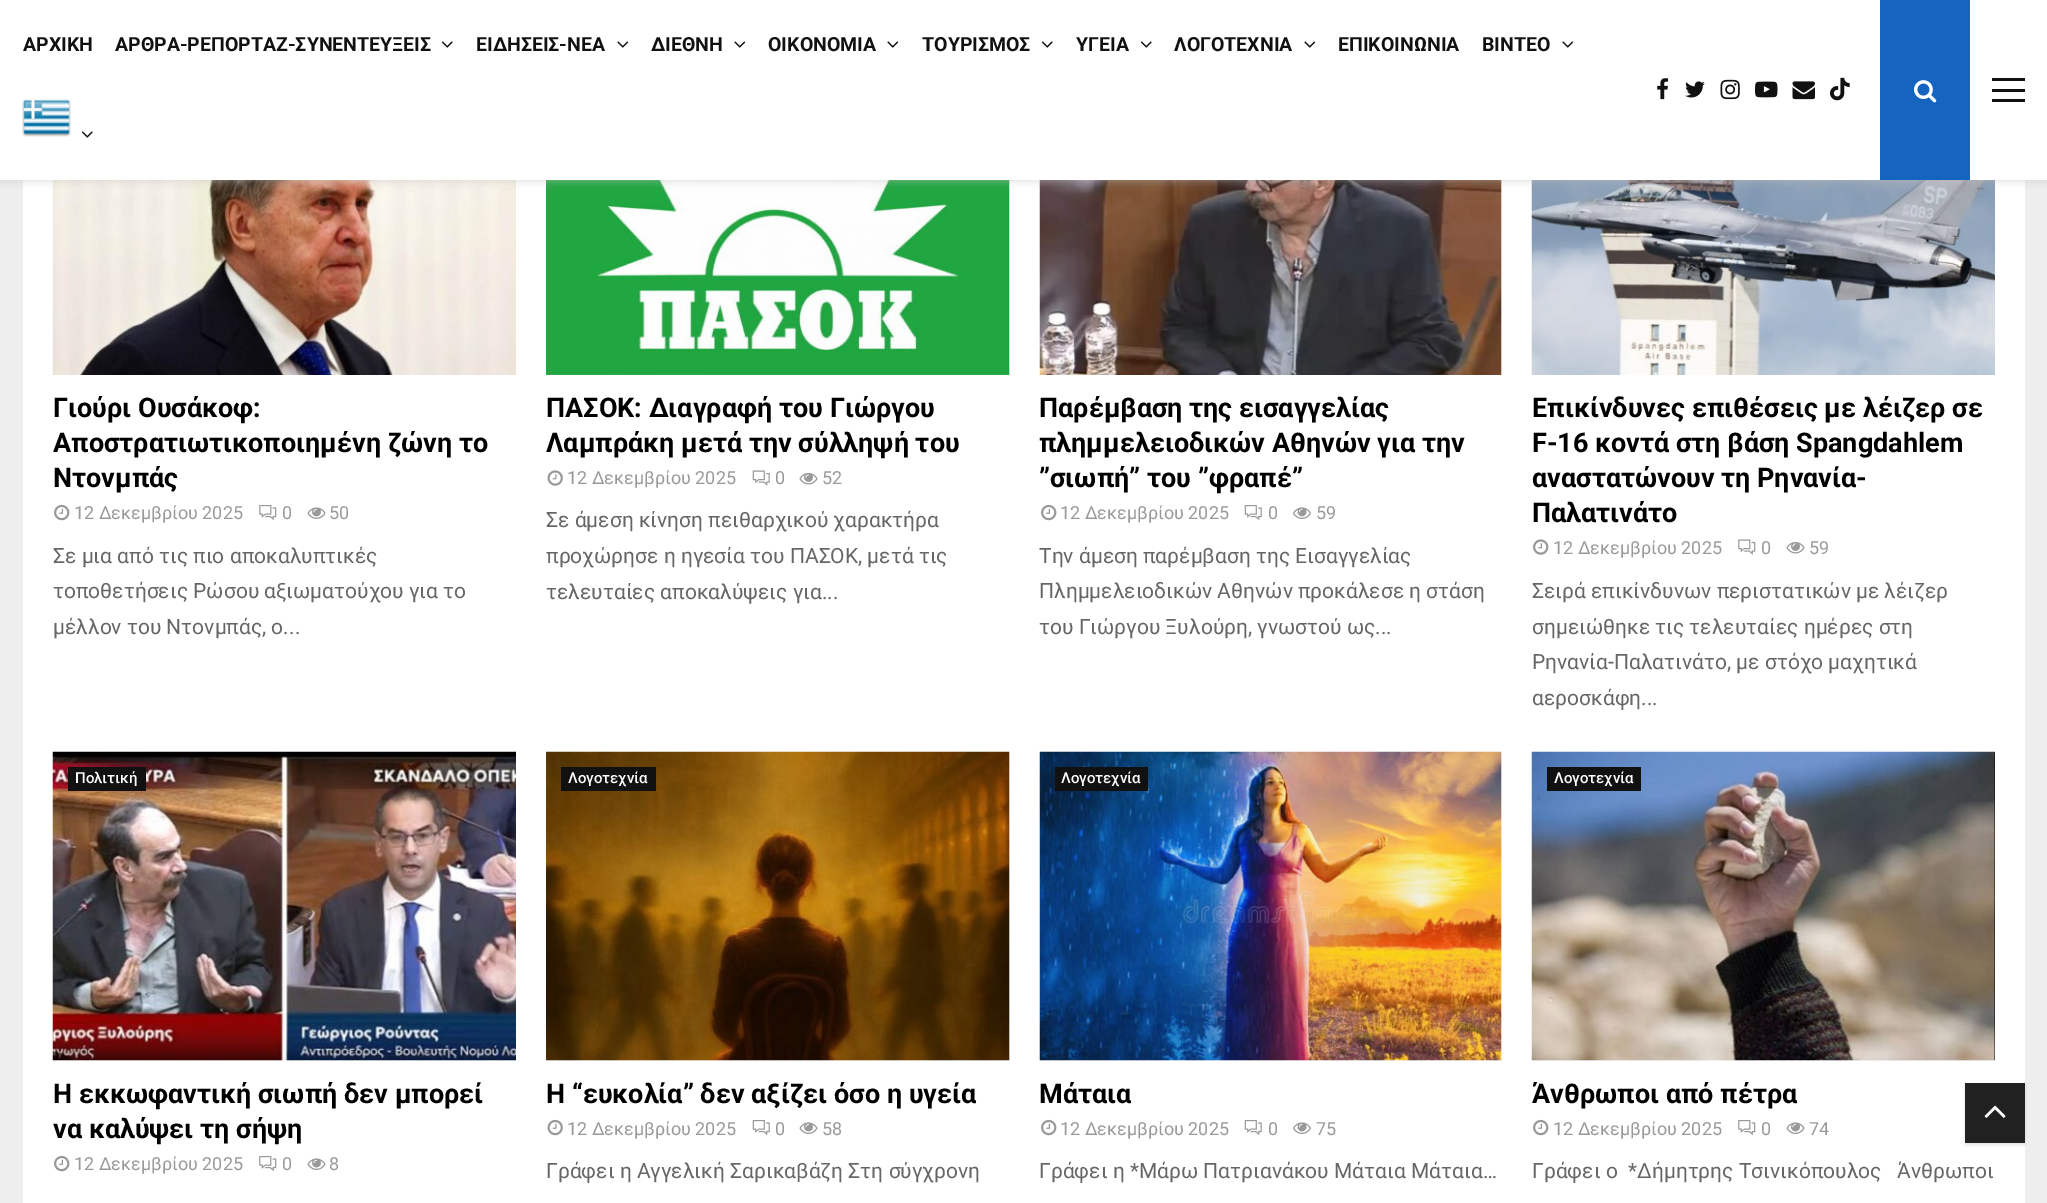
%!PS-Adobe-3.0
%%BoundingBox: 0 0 2047 1203
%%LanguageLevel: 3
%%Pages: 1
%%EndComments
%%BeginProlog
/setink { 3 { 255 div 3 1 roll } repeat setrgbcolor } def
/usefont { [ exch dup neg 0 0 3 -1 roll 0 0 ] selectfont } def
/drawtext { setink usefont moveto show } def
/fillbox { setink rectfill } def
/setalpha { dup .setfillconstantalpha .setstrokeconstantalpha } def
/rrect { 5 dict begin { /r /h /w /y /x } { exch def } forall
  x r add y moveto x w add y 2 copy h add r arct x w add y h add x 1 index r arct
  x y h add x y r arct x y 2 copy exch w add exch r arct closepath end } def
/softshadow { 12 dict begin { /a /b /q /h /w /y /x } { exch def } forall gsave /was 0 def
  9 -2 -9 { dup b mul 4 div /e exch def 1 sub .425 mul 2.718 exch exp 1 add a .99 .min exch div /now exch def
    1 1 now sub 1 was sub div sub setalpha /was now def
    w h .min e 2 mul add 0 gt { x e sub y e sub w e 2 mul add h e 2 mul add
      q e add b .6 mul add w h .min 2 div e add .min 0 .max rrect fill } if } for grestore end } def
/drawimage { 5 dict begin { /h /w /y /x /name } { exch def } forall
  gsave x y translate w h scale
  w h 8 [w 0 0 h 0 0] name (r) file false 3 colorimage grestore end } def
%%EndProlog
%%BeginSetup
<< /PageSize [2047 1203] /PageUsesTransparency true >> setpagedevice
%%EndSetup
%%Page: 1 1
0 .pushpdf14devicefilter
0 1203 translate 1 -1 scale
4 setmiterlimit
0 0 2047 1203 238 238 238 fillbox
23 180 2002 1023 255 255 255 fillbox
(assets/img11.rgb) 52 180 464 195 drawimage
1009 180 1 195 245 245 245 fillbox
(assets/img15.rgb) 546 180 464 195 drawimage
1501 180 1 195 245 245 245 fillbox
(assets/img19.rgb) 1039 180 463 195 drawimage
(assets/img22.rgb) 1531 180 464 195 drawimage
190 190 190 setink
0 2 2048 180 0 4 0.46 softshadow
0 0 2047 180 255 255 255 fillbox
(ΑΡΧΙΚΗ) 23 51 /Roboto-Bold 19.5 17 17 17 drawtext
(ΑΡΘΡΑ-ΡΕΠΟΡΤΑΖ-ΣΥΝΕΝΤΕΥΞΕΙΣ) 115 51 /Roboto-Bold 19.5 17 17 17 drawtext
(assets/img1.rgb) 441 41 12 7 drawimage
(ΕΙΔΗΣΕΙΣ-ΝΕΑ) 476 51 /Roboto-Bold 19.5 17 17 17 drawtext
(assets/img2.rgb) 617 41 12 7 drawimage
(ΔΙΕΘΝΗ) 651 51 /Roboto-Bold 19.5 17 17 17 drawtext
(assets/img2.rgb) 734 41 12 7 drawimage
(ΟΙΚΟΝΟΜΙΑ) 768 51 /Roboto-Bold 19.5 17 17 17 drawtext
(assets/img2.rgb) 887 41 12 7 drawimage
(ΤΟΥΡΙΣΜΟΣ) 922 51 /Roboto-Bold 19.5 17 17 17 drawtext
(assets/img1.rgb) 1041 41 12 7 drawimage
(ΥΓΕΙΑ) 1076 51 /Roboto-Bold 19.5 17 17 17 drawtext
(assets/img1.rgb) 1140 41 12 7 drawimage
(ΛΟΓΟΤΕΧΝΙΑ) 1174 51 /Roboto-Bold 19.5 17 17 17 drawtext
(assets/img2.rgb) 1304 41 12 7 drawimage
(ΕΠΙΚΟΙΝΩΝΙΑ) 1338 51 /Roboto-Bold 19.5 17 17 17 drawtext
(ΒΙΝΤΕΟ) 1482 51 /Roboto-Bold 19.5 17 17 17 drawtext
(assets/img2.rgb) 1562 41 12 7 drawimage
(assets/img3.rgb) 22 99 49 38 drawimage
(assets/img1.rgb) 81 131 12 7 drawimage
(assets/img4.rgb) 1657 78 12 22 drawimage
(assets/img5.rgb) 1685 81 20 17 drawimage
(assets/img6.rgb) 1720 79 20 21 drawimage
(assets/img7.rgb) 1755 81 23 17 drawimage
(assets/img8.rgb) 1792 81 23 19 drawimage
(assets/img9.rgb) 1830 77 20 24 drawimage
1880 0 90 180 21 101 192 fillbox
(assets/img10.rgb) 1914 80 23 23 drawimage
1992 78 33 3 17 17 17 fillbox
1992 99 33 3 17 17 17 fillbox
1992 89 33 3 17 17 17 fillbox
(Γιούρι Ουσάκοφ:) 53 417 /Roboto-Bold 27 0 0 0 drawtext
(Αποστρατιωτικοποιημένη ζώνη το) 53 452 /Roboto-Bold 27 0 0 0 drawtext
(Ντονμπάς) 53 487 /Roboto-Bold 27 0 0 0 drawtext
(assets/img12.rgb) 54 504 16 17 drawimage
(12 Δεκεμβρίου 2025) 74 519 /Roboto-Regular 18 153 153 153 drawtext
(assets/img13.rgb) 259 505 18 16 drawimage
(0) 282 519 /Roboto-Regular 18 153 153 153 drawtext
(assets/img14.rgb) 307 507 19 12 drawimage
(50) 329 519 /Roboto-Regular 18 153 153 153 drawtext
(Σε μια από τις πιο αποκαλυπτικές) 53 563 /Roboto-Regular 21 102 102 102 drawtext
(τοποθετήσεις Ρώσου αξιωματούχου για το) 53 598 /Roboto-Regular 21 102 102 102 drawtext
(μέλλον του Ντονμπάς, ο...) 53 634 /Roboto-Regular 21 102 102 102 drawtext
(ΠΑΣΟΚ: Διαγραφή του Γιώργου) 546 417 /Roboto-Bold 27 0 0 0 drawtext
(Λαμπράκη μετά την σύλληψή του) 546 452 /Roboto-Bold 27 0 0 0 drawtext
(assets/img16.rgb) 547 470 16 16 drawimage
(12 Δεκεμβρίου 2025) 567 484 /Roboto-Regular 18 153 153 153 drawtext
(assets/img17.rgb) 752 470 18 16 drawimage
(0) 775 484 /Roboto-Regular 18 153 153 153 drawtext
(assets/img18.rgb) 799 472 19 13 drawimage
(52) 822 484 /Roboto-Regular 18 153 153 153 drawtext
(Σε άμεση κίνηση πειθαρχικού χαρακτήρα) 546 527 /Roboto-Regular 21 102 102 102 drawtext
(προχώρησε η ηγεσία του ΠΑΣΟΚ, μετά τις) 546 563 /Roboto-Regular 21 102 102 102 drawtext
(τελευταίες αποκαλύψεις για...) 546 599 /Roboto-Regular 21 102 102 102 drawtext
(Παρέμβαση της εισαγγελίας) 1039 417 /Roboto-Bold 27 0 0 0 drawtext
(πλημμελειοδικών Αθηνών για την) 1039 452 /Roboto-Bold 27 0 0 0 drawtext
(”σιωπή” του ”φραπέ”) 1039 487 /Roboto-Bold 27 0 0 0 drawtext
(assets/img12.rgb) 1041 504 16 17 drawimage
(12 Δεκεμβρίου 2025) 1060 519 /Roboto-Regular 18 153 153 153 drawtext
(assets/img20.rgb) 1244 505 18 16 drawimage
(0) 1268 519 /Roboto-Regular 18 153 153 153 drawtext
(assets/img21.rgb) 1293 507 18 12 drawimage
(59) 1316 519 /Roboto-Regular 18 153 153 153 drawtext
(Την άμεση παρέμβαση της Εισαγγελίας) 1039 563 /Roboto-Regular 21 102 102 102 drawtext
(Πλημμελειοδικών Αθηνών προκάλεσε η στάση) 1039 598 /Roboto-Regular 21 102 102 102 drawtext
(του Γιώργου Ξυλούρη, γνωστού ως...) 1039 634 /Roboto-Regular 21 102 102 102 drawtext
(Επικίνδυνες επιθέσεις με λέιζερ σε) 1532 417 /Roboto-Bold 27 0 0 0 drawtext
(F-16 κοντά στη βάση Spangdahlem) 1532 452 /Roboto-Bold 27 0 0 0 drawtext
(αναστατώνουν τη Ρηνανία-) 1532 487 /Roboto-Bold 27 0 0 0 drawtext
(Παλατινάτο) 1532 522 /Roboto-Bold 27 0 0 0 drawtext
(assets/img23.rgb) 1533 539 16 16 drawimage
(12 Δεκεμβρίου 2025) 1553 554 /Roboto-Regular 18 153 153 153 drawtext
(assets/img24.rgb) 1738 539 18 16 drawimage
(0) 1761 554 /Roboto-Regular 18 153 153 153 drawtext
(assets/img18.rgb) 1786 541 19 13 drawimage
(59) 1809 554 /Roboto-Regular 18 153 153 153 drawtext
(Σειρά επικίνδυνων περιστατικών με λέιζερ) 1532 598 /Roboto-Regular 21 102 102 102 drawtext
(σημειώθηκε τις τελευταίες ημέρες στη) 1532 634 /Roboto-Regular 21 102 102 102 drawtext
(Ρηνανία-Παλατινάτο, με στόχο μαχητικά) 1532 669 /Roboto-Regular 21 102 102 102 drawtext
(αεροσκάφη...) 1532 705 /Roboto-Regular 21 102 102 102 drawtext
53 1060 463 1 245 245 245 fillbox
(assets/img25.rgb) 52 751 464 310 drawimage
68 767 78 24 17 17 17 fillbox
(Πολιτική) 75 783 /Roboto-Medium 15 255 255 255 drawtext
(Η εκκωφαντική σιωπή δεν μπορεί) 53 1103 /Roboto-Bold 27 0 0 0 drawtext
(να καλύψει τη σήψη) 53 1138 /Roboto-Bold 27 0 0 0 drawtext
(assets/img12.rgb) 54 1155 16 17 drawimage
(12 Δεκεμβρίου 2025) 74 1170 /Roboto-Regular 18 153 153 153 drawtext
(assets/img13.rgb) 259 1156 18 16 drawimage
(0) 282 1170 /Roboto-Regular 18 153 153 153 drawtext
(assets/img14.rgb) 307 1158 19 12 drawimage
(8) 329 1170 /Roboto-Regular 18 153 153 153 drawtext
546 752 464 309 245 245 245 fillbox
(assets/img26.rgb) 546 751 464 310 drawimage
561 767 95 24 17 17 17 fillbox
(Λογοτεχνία) 568 783 /Roboto-Medium 15 255 255 255 drawtext
(Η “ευκολία” δεν αξίζει όσο η υγεία) 546 1103 /Roboto-Bold 27 0 0 0 drawtext
(assets/img27.rgb) 547 1119 16 17 drawimage
(12 Δεκεμβρίου 2025) 567 1135 /Roboto-Regular 18 153 153 153 drawtext
(assets/img20.rgb) 752 1120 18 16 drawimage
(0) 775 1135 /Roboto-Regular 18 153 153 153 drawtext
(assets/img14.rgb) 799 1122 19 12 drawimage
(58) 822 1135 /Roboto-Regular 18 153 153 153 drawtext
(Γράφει η Αγγελική Σαρικαβάζη Στη σύγχρονη) 546 1178 /Roboto-Regular 21 102 102 102 drawtext
1040 752 462 309 245 245 245 fillbox
(assets/img28.rgb) 1039 751 463 310 drawimage
1055 767 93 24 17 17 17 fillbox
(Λογοτεχνία) 1061 783 /Roboto-Medium 15 255 255 255 drawtext
(Μάταια) 1039 1103 /Roboto-Bold 27 0 0 0 drawtext
(assets/img12.rgb) 1041 1119 16 17 drawimage
(12 Δεκεμβρίου 2025) 1060 1135 /Roboto-Regular 18 153 153 153 drawtext
(assets/img20.rgb) 1244 1120 18 16 drawimage
(0) 1268 1135 /Roboto-Regular 18 153 153 153 drawtext
(assets/img21.rgb) 1293 1122 18 12 drawimage
(75) 1316 1135 /Roboto-Regular 18 153 153 153 drawtext
(Γράφει η *Μάρω Πατριανάκου Μάταια Μάταια…) 1039 1178 /Roboto-Regular 21 102 102 102 drawtext
1532 1060 463 1 245 245 245 fillbox
(assets/img29.rgb) 1531 751 464 310 drawimage
1547 767 94 24 17 17 17 fillbox
(Λογοτεχνία) 1554 783 /Roboto-Medium 15 255 255 255 drawtext
(Άνθρωποι από πέτρα) 1532 1103 /Roboto-Bold 27 0 0 0 drawtext
(assets/img12.rgb) 1533 1119 16 17 drawimage
(12 Δεκεμβρίου 2025) 1553 1135 /Roboto-Regular 18 153 153 153 drawtext
(assets/img13.rgb) 1738 1120 18 16 drawimage
(0) 1761 1135 /Roboto-Regular 18 153 153 153 drawtext
(assets/img14.rgb) 1786 1122 19 12 drawimage
(74) 1809 1135 /Roboto-Regular 18 153 153 153 drawtext
(Γράφει ο  *Δήμητρης Τσινικόπουλος   Άνθρωποι) 1532 1178 /Roboto-Regular 21 102 102 102 drawtext
0 0 0 setink
1965 1085 60 60 0 1.5 0.1 softshadow
1965 1083 60 60 33 33 33 fillbox
(assets/img30.rgb) 1984 1105 22 13 drawimage
.poppdf14devicefilter showpage
%%EOF
